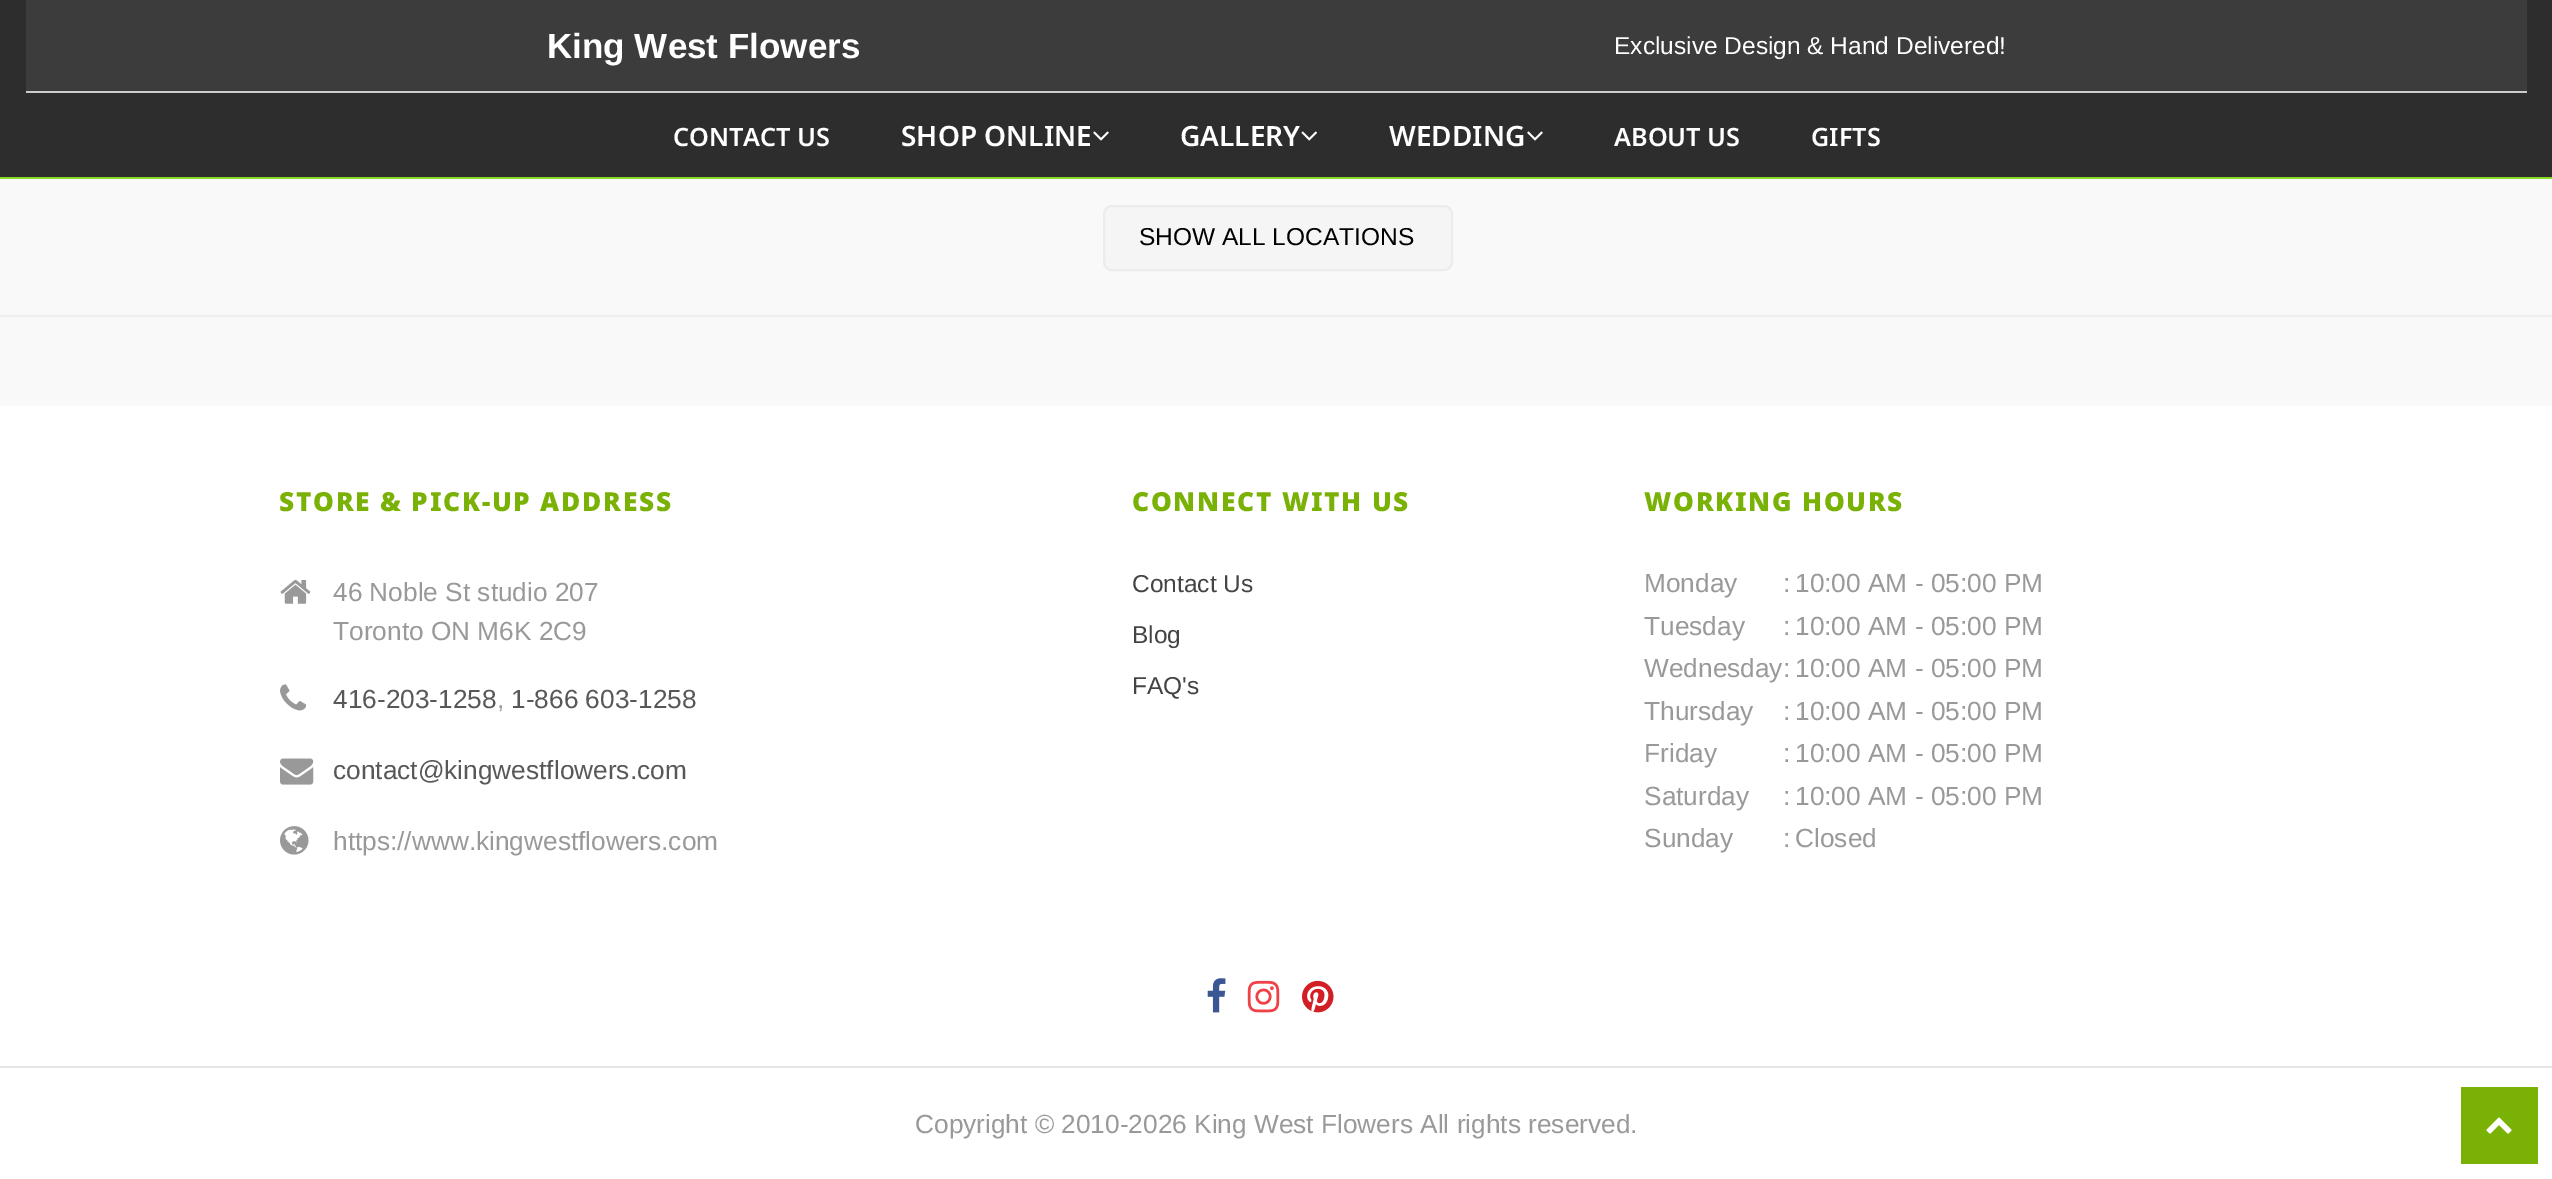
%!PS-Adobe-3.0
%%BoundingBox: 0 0 2552 1179
%%LanguageLevel: 3
%%Pages: 1
%%EndComments
%%BeginProlog
/setink { 3 { 255 div 3 1 roll } repeat setrgbcolor } def
/usefont { [ exch dup neg 0 0 3 -1 roll 0 0 ] selectfont } def
/drawtext { setink usefont moveto show } def
/fillbox { setink rectfill } def
/rrect { 5 dict begin { /r /h /w /y /x } { exch def } forall
  x r add y moveto x w add y 2 copy h add r arct x w add y h add x 1 index r arct
  x y h add x y r arct x y 2 copy exch w add exch r arct closepath end } def
/drawimage { 5 dict begin { /h /w /y /x /name } { exch def } forall
  gsave x y translate w h scale
  w h 8 [w 0 0 h 0 0] name (r) file false 3 colorimage grestore end } def
%%EndProlog
%%BeginSetup
<< /PageSize [2552 1179] >> setpagedevice
%%EndSetup
%%Page: 1 1
0 1179 translate 1 -1 scale
4 setmiterlimit
0 0 2552 1179 249 249 249 fillbox
0 0 2552 177 45 45 45 fillbox
0 177 2552 2 135 218 39 fillbox
26 0 2501 91 60 60 60 fillbox
26 91 2501 2 204 204 204 fillbox
(King West Flowers) 547 58 /LiberationSans-Bold 35 255 255 255 drawtext
(Exclusive Design & Hand Delivered!) 1614 54 /LiberationSans-Regular 24.5 255 255 255 drawtext
(CONTACT US) 673 146 /NotoSans-SemiBold 25.25 255 255 255 drawtext
(SHOP ONLINE) 901 146 /NotoSans-SemiBold 28 255 255 255 drawtext
(assets/img1.rgb) 1093 131 16 10 drawimage
(GALLERY) 1180 146 /NotoSans-SemiBold 28 255 255 255 drawtext
(assets/img2.rgb) 1301 131 16 10 drawimage
(WEDDING) 1389 146 /NotoSans-SemiBold 28 255 255 255 drawtext
(assets/img1.rgb) 1527 131 16 10 drawimage
(ABOUT US) 1614 146 /NotoSans-SemiBold 25.25 255 255 255 drawtext
(GIFTS) 1811 146 /NotoSans-SemiBold 25.25 255 255 255 drawtext
245 245 245 setink
1104 206 348 64 8 rrect gsave fill grestore
236 236 236 setink
2 setlinewidth
stroke
(SHOW ALL LOCATIONS) 1139 245 /LiberationSans-Regular 24.5 0 0 0 drawtext
0 315 2552 2 238 238 238 fillbox
0 406 2552 773 255 255 255 fillbox
/NotoSans-Black 26.25 usefont
121 177 5 setink
279 511 moveto 1.75 0 (STORE & PICK-UP ADDRESS) ashow
(assets/img3.rgb) 280 580 31 24 drawimage
(46 Noble St studio 207) 333 601 /LiberationSans-Regular 26.25 153 153 153 drawtext
(Toronto ON M6K 2C9) 333 640 /LiberationSans-Regular 26.25 153 153 153 drawtext
(assets/img4.rgb) 280 684 27 27 drawimage
(416-203-1258) 333 708 /LiberationSans-Regular 26.25 88 88 88 drawtext
(,) 497 708 /LiberationSans-Regular 26.25 153 153 153 drawtext
(1-866 603-1258) 511 708 /LiberationSans-Regular 26.25 88 88 88 drawtext
(assets/img5.rgb) 280 758 34 27 drawimage
(contact@kingwestflowers.com) 333 779 /LiberationSans-Regular 26.25 88 88 88 drawtext
(assets/img6.rgb) 280 826 29 29 drawimage
(https://www.kingwestflowers.com) 333 850 /LiberationSans-Regular 26.25 153 153 153 drawtext
/NotoSans-Black 26.25 usefont
121 177 5 setink
1132 511 moveto 1.75 0 (CONNECT WITH US) ashow
(Contact Us) 1132 592 /LiberationSans-Regular 24.5 68 68 68 drawtext
(Blog) 1132 643 /LiberationSans-Regular 24.5 68 68 68 drawtext
(FAQ's) 1132 694 /LiberationSans-Regular 24.5 68 68 68 drawtext
/NotoSans-Black 26.25 usefont
121 177 5 setink
1644 511 moveto 1.75 0 (WORKING HOURS) ashow
(Monday) 1644 592 /LiberationSans-Regular 26.25 153 153 153 drawtext
(:) 1783 592 /LiberationSans-Regular 26.25 153 153 153 drawtext
(10:00 AM - 05:00 PM) 1795 592 /LiberationSans-Regular 26.25 153 153 153 drawtext
(Tuesday) 1644 635 /LiberationSans-Regular 26.25 153 153 153 drawtext
(:) 1783 635 /LiberationSans-Regular 26.25 153 153 153 drawtext
(10:00 AM - 05:00 PM) 1795 635 /LiberationSans-Regular 26.25 153 153 153 drawtext
(Wednesday:) 1644 677 /LiberationSans-Regular 26.25 153 153 153 drawtext
(10:00 AM - 05:00 PM) 1795 677 /LiberationSans-Regular 26.25 153 153 153 drawtext
(Thursday) 1644 720 /LiberationSans-Regular 26.25 153 153 153 drawtext
(:) 1783 720 /LiberationSans-Regular 26.25 153 153 153 drawtext
(10:00 AM - 05:00 PM) 1795 720 /LiberationSans-Regular 26.25 153 153 153 drawtext
(Friday) 1644 762 /LiberationSans-Regular 26.25 153 153 153 drawtext
(:) 1783 762 /LiberationSans-Regular 26.25 153 153 153 drawtext
(10:00 AM - 05:00 PM) 1795 762 /LiberationSans-Regular 26.25 153 153 153 drawtext
(Saturday) 1644 805 /LiberationSans-Regular 26.25 153 153 153 drawtext
(:) 1783 805 /LiberationSans-Regular 26.25 153 153 153 drawtext
(10:00 AM - 05:00 PM) 1795 805 /LiberationSans-Regular 26.25 153 153 153 drawtext
(Sunday) 1644 847 /LiberationSans-Regular 26.25 153 153 153 drawtext
(:) 1783 847 /LiberationSans-Regular 26.25 153 153 153 drawtext
(Closed) 1795 847 /LiberationSans-Regular 26.25 153 153 153 drawtext
(assets/img7.rgb) 1207 978 19 35 drawimage
(assets/img8.rgb) 1247 980 33 33 drawimage
(assets/img9.rgb) 1302 980 32 33 drawimage
0 1066 2552 2 230 230 230 fillbox
(Copyright © 2010-2026 King West Flowers All rights reserved.) 915 1133 /LiberationSans-Regular 26.25 153 153 153 drawtext
2461 1087 77 77 121 177 5 fillbox
(assets/img10.rgb) 2486 1117 26 17 drawimage
showpage
%%EOF
